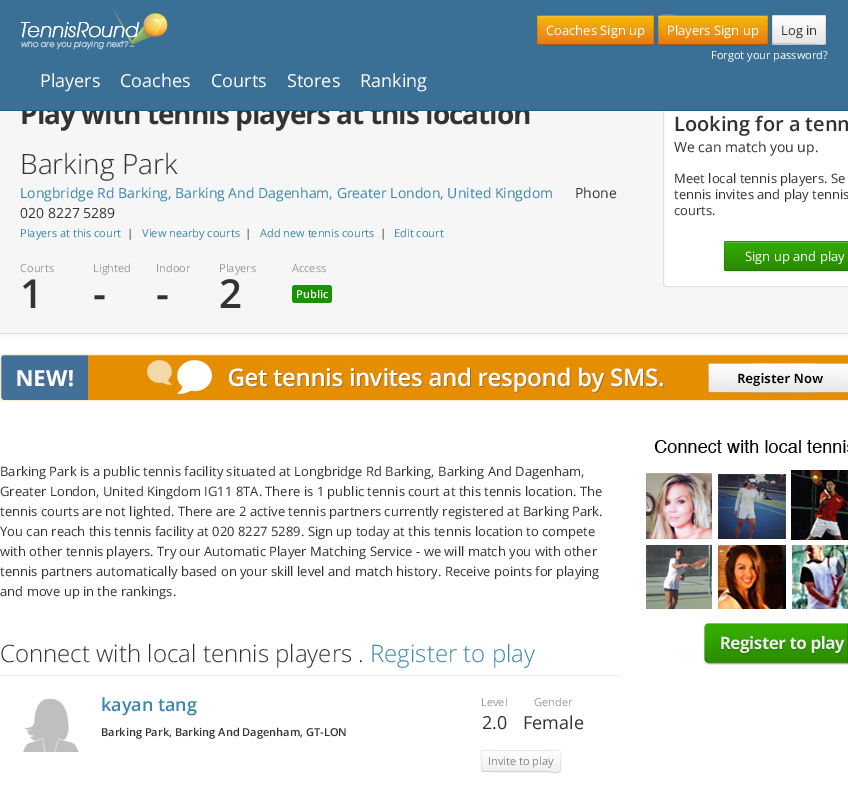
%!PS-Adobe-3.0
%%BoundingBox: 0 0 848 787
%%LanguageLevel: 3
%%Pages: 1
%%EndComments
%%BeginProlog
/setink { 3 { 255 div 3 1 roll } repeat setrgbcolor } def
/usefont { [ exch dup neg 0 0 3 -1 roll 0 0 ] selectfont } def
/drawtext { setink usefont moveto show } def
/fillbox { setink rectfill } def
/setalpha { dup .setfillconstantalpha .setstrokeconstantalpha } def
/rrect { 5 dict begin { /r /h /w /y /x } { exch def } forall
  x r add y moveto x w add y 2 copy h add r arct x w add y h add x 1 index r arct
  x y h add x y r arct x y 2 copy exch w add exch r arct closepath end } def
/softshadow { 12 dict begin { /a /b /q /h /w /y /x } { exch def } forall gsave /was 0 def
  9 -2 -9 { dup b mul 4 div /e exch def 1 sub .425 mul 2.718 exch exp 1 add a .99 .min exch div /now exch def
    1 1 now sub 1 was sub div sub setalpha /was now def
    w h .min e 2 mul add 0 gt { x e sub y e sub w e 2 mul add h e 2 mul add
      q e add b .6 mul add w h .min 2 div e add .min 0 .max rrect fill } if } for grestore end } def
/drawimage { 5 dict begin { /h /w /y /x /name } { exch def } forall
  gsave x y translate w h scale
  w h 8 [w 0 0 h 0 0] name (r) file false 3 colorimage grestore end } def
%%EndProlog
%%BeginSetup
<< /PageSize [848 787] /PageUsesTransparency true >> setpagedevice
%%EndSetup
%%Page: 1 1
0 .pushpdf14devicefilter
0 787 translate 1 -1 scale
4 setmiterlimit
0 0 848 787 255 255 255 fillbox
241 241 241 setink
0 64 848 271 0 2.5 1 softshadow
2 111 844 222 246 246 246 fillbox
/OpenSans-Bold 28 usefont
51 51 51 setink
20 124 moveto -1 0 (Play with tennis players at this location) ashow
255 255 255 setink
663.5 98.5 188 188 2.5 rrect gsave fill grestore
225 225 225 setink
stroke
0 0 848 110 59 112 150 fillbox
0 110 848 1 30 96 128 fillbox
(assets/img1.rgb) 20 8 148 42 drawimage
231 123 20 setink
537 15 117 30 2 rrect fill
gsave
537 15 117 30 2 rrect clip newpath
gsave 537 16 moveto 654 16 lineto 654 44 lineto 537 44 lineto closepath clip newpath
<< /ShadingType 2 /ColorSpace /DeviceRGB /Coords [596 16 596 44] /Extend [true true] /Function << /FunctionType 2 /Domain [0 1] /C0 [0.973 0.725 0.047] /C1 [0.906 0.482 0.078] /N 1 >> >> shfill grestore
grestore
249 198 61 setink
539 17 moveto 653 17 lineto 653 18 lineto 653 17 653 16 652 16 curveto 539 16 lineto 538 16 538 17 538 18 curveto 538 17 538 17 539 17 curveto closepath fill
0.25 setalpha
0 0 0 setink
653 44 moveto 652 44.5 lineto 539 44.5 lineto 538 44 lineto stroke
0.1 setalpha
538 44 moveto 536.5 42.5 537.5 36.5 537.5 34.5 curveto 537.5 21.5 lineto 537.5 21 536.5 15.5 539 15.5 curveto 652 15.5 lineto 654.5 15.5 653.5 21 653.5 21.5 curveto 653.5 34.5 lineto 653.5 36.5 654.5 42.5 653 44 curveto stroke
1 setalpha
(Coaches Sign up) 546 35 /OpenSans-Regular 13 255 255 255 drawtext
231 123 20 setink
658 15 110 30 2 rrect fill
gsave
658 15 110 30 2 rrect clip newpath
gsave 658 16 moveto 768 16 lineto 768 44 lineto 658 44 lineto closepath clip newpath
<< /ShadingType 2 /ColorSpace /DeviceRGB /Coords [713 16 713 44] /Extend [true true] /Function << /FunctionType 2 /Domain [0 1] /C0 [0.973 0.725 0.047] /C1 [0.906 0.482 0.078] /N 1 >> >> shfill grestore
grestore
0.2 setalpha
255 255 255 setink
660 17 moveto 767 17 lineto 767 18 lineto 766 16 lineto 678 16 lineto 678 16 659 11 659 18 curveto 659 17 659 17 660 17 curveto closepath fill
0.25 setalpha
0 0 0 setink
767 44 moveto 766 45 733 44.5 730.5 44.5 curveto 660 44.5 lineto 659 44 lineto stroke
0.1 setalpha
659 44 moveto 657.5 42.5 658.5 36.5 658.5 34.5 curveto 658.5 21.5 lineto 658.5 21 657.5 15.5 660 15.5 curveto 766 15.5 lineto 768.5 15.5 767.5 21 767.5 21.5 curveto 767.5 34.5 lineto 767.5 36.5 768.5 42.5 767 44 curveto stroke
1 setalpha
(Players Sign up) 667 35 /OpenSans-Regular 13 255 255 255 drawtext
245 245 245 setink
772 15 54 30 2 rrect fill
gsave
772 15 54 30 2 rrect clip newpath
gsave 772 16 moveto 826 16 lineto 826 44 lineto 772 44 lineto closepath clip newpath
<< /ShadingType 2 /ColorSpace /DeviceRGB /Coords [799 16 799 44] /Extend [true true] /Function << /FunctionType 2 /Domain [0 1] /C0 [1 1 1] /C1 [0.902 0.902 0.902] /N 1 >> >> shfill grestore
grestore
0.25 setalpha
0 0 0 setink
825 44 moveto 823 46.5 819 44.5 815.5 44.5 curveto 773 44 lineto stroke
0.1 setalpha
773 44 moveto 771.5 42.5 772.5 32 772.5 30 curveto 772.5 14 769 15.5 782.5 15.5 curveto 815.5 15.5 lineto 829 15.5 825.5 14 825.5 30 curveto 825.5 32 826.5 42.5 825 44 curveto stroke
1 setalpha
(Log in) 781 35 /OpenSans-Regular 13 51 51 51 drawtext
(Forgot your password?) 711 59 /OpenSans-Regular 11 255 255 255 drawtext
(Players) 40 87 /OpenSans-Regular 18 255 255 255 drawtext
(Coaches) 120 87 /OpenSans-Regular 18 255 255 255 drawtext
(Courts) 211 87 /OpenSans-Regular 18 255 255 255 drawtext
(Stores) 287 87 /OpenSans-Regular 18 255 255 255 drawtext
(Ranking) 360 87 /OpenSans-Regular 18 255 255 255 drawtext
0 333 848 1 221 221 221 fillbox
(Barking Park) 20 174 /OpenSans-Light 28 51 51 51 drawtext
(Longbridge Rd Barking, Barking And Dagenham, Greater London, United Kingdom) 20 198 /OpenSans-Regular 14 58 135 173 drawtext
(Phone) 575 198 /OpenSans-Regular 14 51 51 51 drawtext
(020 8227 5289) 20 218 /OpenSans-Regular 14 51 51 51 drawtext
(Players at this court) 20 237 /OpenSans-Regular 11 58 135 173 drawtext
(|) 127 237 /OpenSans-Regular 11 51 51 51 drawtext
(View nearby courts) 142 237 /OpenSans-Regular 11 58 135 173 drawtext
(|) 245 237 /OpenSans-Regular 11 51 51 51 drawtext
(Add new tennis courts) 260 237 /OpenSans-Regular 11 58 135 173 drawtext
(|) 380 237 /OpenSans-Regular 11 51 51 51 drawtext
(Edit court) 394 237 /OpenSans-Regular 11 58 135 173 drawtext
(Courts) 20 272 /OpenSans-Regular 11 153 153 153 drawtext
(1) 20 308 /OpenSans-SemiBold 40 51 51 51 drawtext
(Lighted) 93 272 /OpenSans-Regular 11 153 153 153 drawtext
(-) 93 308 /OpenSans-SemiBold 40 51 51 51 drawtext
(Indoor) 156 272 /OpenSans-Regular 11 153 153 153 drawtext
(-) 156 308 /OpenSans-SemiBold 40 51 51 51 drawtext
(Players) 219 272 /OpenSans-Regular 11 153 153 153 drawtext
(2) 219 308 /OpenSans-SemiBold 40 51 51 51 drawtext
(Access) 292 272 /OpenSans-Regular 11 153 153 153 drawtext
25 148 0 setink
292 285 40 18 3 rrect fill
(Public) 296 298 /OpenSans-SemiBold 11 255 255 255 drawtext
(Looking for a tenn) 674 131 /OpenSans-SemiBold 20 51 51 51 drawtext
(We can match you up.) 674 152 /OpenSans-Regular 14 51 51 51 drawtext
(Meet local tennis players. Se) 674 183 /OpenSans-Regular 13 51 51 51 drawtext
(tennis invites and play tennis) 674 199 /OpenSans-Regular 13 51 51 51 drawtext
(courts.) 674 215 /OpenSans-Regular 13 51 51 51 drawtext
0 0 0 setink
724 242 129 30 2 1 0.05 softshadow
49 159 0 setink
724 241 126 30 2 rrect fill
gsave 724 242 moveto 848 242 lineto 848 270 lineto 724 270 lineto closepath clip newpath
<< /ShadingType 2 /ColorSpace /DeviceRGB /Coords [811 242 811 270] /Extend [true true] /Function << /FunctionType 2 /Domain [0 1] /C0 [0.208 0.678 0] /C1 [0.165 0.537 0] /N 1 >> >> shfill grestore
93 189 51 setink
726 243 moveto 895 243 lineto 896 243 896 243 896 244 curveto 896 242 lineto 726 242 lineto 725 242 725 243 725 244 curveto 725 243 725 243 726 243 curveto closepath fill
0.25 setalpha
0 0 0 setink
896 270 moveto 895.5 270.5 lineto 838.5 270.5 lineto 726 270.5 lineto 725 270 lineto stroke
0.1 setalpha
725 270 moveto 723.5 268.5 724.5 258 724.5 256 curveto 724.5 247.5 lineto 724.5 247 723.5 241.5 726 241.5 curveto 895 241.5 lineto 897.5 241.5 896.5 247 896.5 247.5 curveto 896.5 256 lineto 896.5 258 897.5 268.5 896 270 curveto stroke
1 setalpha
(Sign up and play) 745 261 /OpenSans-Regular 13 255 255 255 drawtext
(assets/img2.rgb) 0 354 848 47 drawimage
251 238 213 setink
0.5 354.5 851 46 2.5 rrect stroke
(Barking Park is a public tennis facility situated at Longbridge Rd Barking, Barking And Dagenham,) 0 476 /OpenSans-Regular 13 51 51 51 drawtext
(Greater London, United Kingdom IG11 8TA. There is 1 public tennis court at this tennis location. The) 0 496 /OpenSans-Regular 13 51 51 51 drawtext
(tennis courts are not lighted. There are 2 active tennis partners currently registered at Barking Park.) 0 516 /OpenSans-Regular 13 51 51 51 drawtext
(You can reach this tennis facility at 020 8227 5289. Sign up today at this tennis location to compete) 0 536 /OpenSans-Regular 13 51 51 51 drawtext
(with other tennis players. Try our Automatic Player Matching Service - we will match you with other) 0 556 /OpenSans-Regular 13 51 51 51 drawtext
(tennis partners automatically based on your skill level and match history. Receive points for playing) 0 576 /OpenSans-Regular 13 51 51 51 drawtext
(and move up in the rankings.) 0 596 /OpenSans-Regular 13 51 51 51 drawtext
0 675 620 1 233 233 233 fillbox
(Connect with local tennis players .) 0 662 /OpenSans-Light 24 51 51 51 drawtext
(Register to play) 370 662 /OpenSans-Light 24 58 135 173 drawtext
(assets/img3.rgb) 23 698 56 54 drawimage
(kayan tang) 101 711 /OpenSans-SemiBold 18 58 135 173 drawtext
(Barking Park, Barking And Dagenham, GT-LON) 101 736 /OpenSans-SemiBold 11 51 51 51 drawtext
(Level) 481 706 /OpenSans-Regular 11 153 153 153 drawtext
(2.0) 482 729 /OpenSans-Regular 18 51 51 51 drawtext
(Gender) 534 706 /OpenSans-Regular 11 153 153 153 drawtext
(Female) 523 729 /OpenSans-Regular 18 51 51 51 drawtext
249 249 249 setink
481 750 80 22 2 rrect fill
gsave
481 750 80 22 2 rrect clip newpath
gsave 481 751 moveto 561 751 lineto 561 771 lineto 481 771 lineto closepath clip newpath
<< /ShadingType 2 /ColorSpace /DeviceRGB /Coords [521 751 521 771] /Extend [true true] /Function << /FunctionType 2 /Domain [0 1] /C0 [1 1 1] /C1 [0.941 0.941 0.941] /N 1 >> >> shfill grestore
grestore
212 212 212 setink
560 771 moveto 557 774.5 551 771.5 546.5 771.5 curveto 540 771.5 483 772 482 771 curveto stroke
0.1 setalpha
102 102 102 setink
482 771 moveto 480.5 769.5 481.5 765.5 481.5 764 curveto 481.5 747 478 750.5 495.5 750.5 curveto 546.5 750.5 lineto 564 750.5 560.5 747 560.5 764 curveto 560.5 765.5 561.5 769.5 560 771 curveto stroke
1 setalpha
(Invite to play) 488 765 /OpenSans-Regular 11 133 133 133 drawtext
(assets/img4.rgb) 646 440 202 225 drawimage
.poppdf14devicefilter showpage
%%EOF
